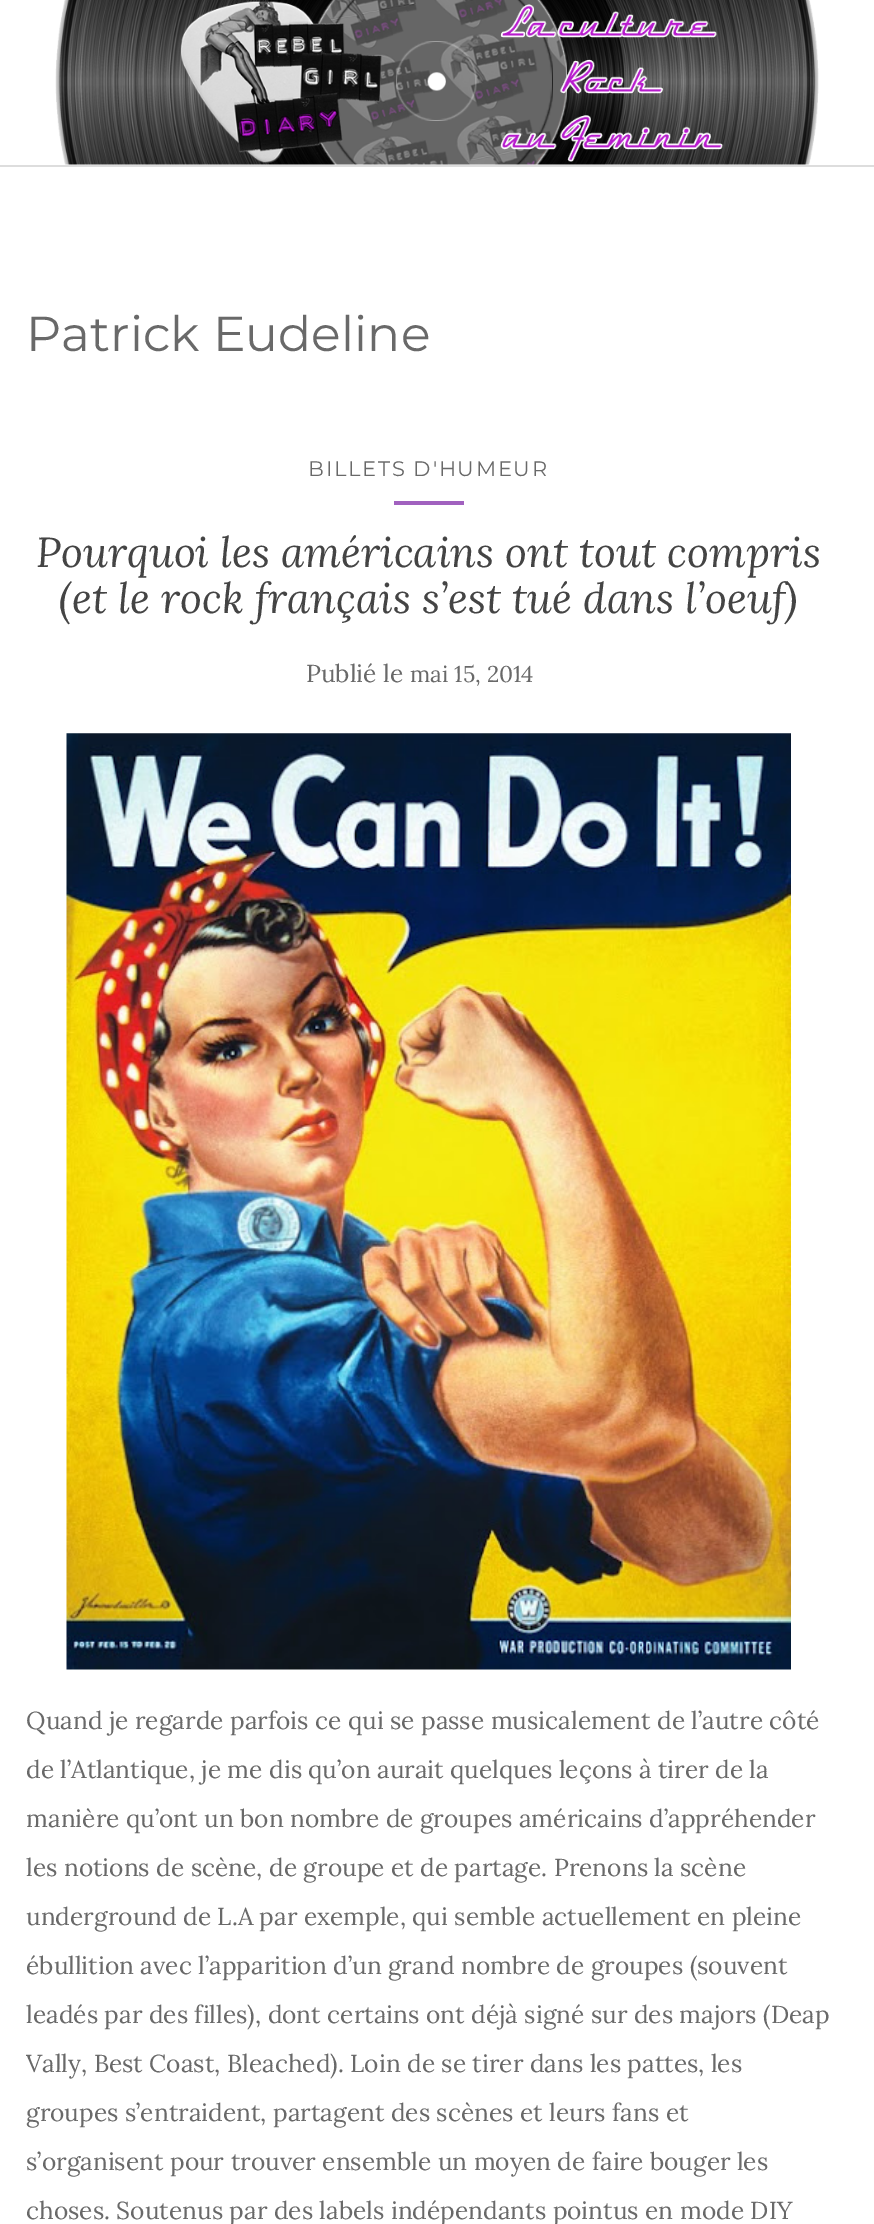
%!PS-Adobe-3.0
%%BoundingBox: 0 0 874 2224
%%LanguageLevel: 3
%%Pages: 1
%%EndComments
%%BeginProlog
/setink { 3 { 255 div 3 1 roll } repeat setrgbcolor } def
/usefont { [ exch dup neg 0 0 3 -1 roll 0 0 ] selectfont } def
/drawtext { setink usefont moveto show } def
/fillbox { setink rectfill } def
/drawimage { 5 dict begin { /h /w /y /x /name } { exch def } forall
  gsave x y translate w h scale
  w h 8 [w 0 0 h 0 0] name (r) file false 3 colorimage grestore end } def
%%EndProlog
%%BeginSetup
<< /PageSize [874 2224] >> setpagedevice
%%EndSetup
%%Page: 1 1
0 2224 translate 1 -1 scale
4 setmiterlimit
0 0 874 2224 255 255 255 fillbox
(assets/img1.rgb) 55 0 764 165 drawimage
0 165 874 2 221 221 221 fillbox
(Patrick Eudeline) 26 351 /Montserrat-Regular 49 105 105 105 drawtext
/Montserrat-Regular 21 usefont
308 476 moveto 1.75 0 (BILLETS D'HUMEUR) ashow
394 501 70 4 161 97 191 fillbox
(Pourquoi les américains ont tout compris) 36 567 /Lora-Italic 42 68 68 68 drawtext
(\(et le rock français s’est tué dans l’oeuf\)) 59 613 /Lora-Italic 42 68 68 68 drawtext
(Publié le) 306 682 /Lora-Regular 24.5 105 105 105 drawtext
(mai 15, 2014) 410 682 /Lora-Regular 22.75 105 105 105 drawtext
(assets/img2.rgb) 66 733 725 937 drawimage
(Quand je regarde parfois ce qui se passe musicalement de l’autre côté) 26 1729 /Lora-Regular 24.5 105 105 105 drawtext
(de l’Atlantique, je me dis qu’on aurait quelques leçons à tirer de la) 26 1778 /Lora-Regular 24.5 105 105 105 drawtext
(manière qu’ont un bon nombre de groupes américains d’appréhender) 26 1827 /Lora-Regular 24.5 105 105 105 drawtext
(les notions de scène, de groupe et de partage. Prenons la scène) 26 1876 /Lora-Regular 24.5 105 105 105 drawtext
(underground de L.A par exemple, qui semble actuellement en pleine) 26 1925 /Lora-Regular 24.5 105 105 105 drawtext
(ébullition avec l’apparition d’un grand nombre de groupes \(souvent) 26 1974 /Lora-Regular 24.5 105 105 105 drawtext
(leadés par des filles\), dont certains ont déjà signé sur des majors \(Deap) 26 2023 /Lora-Regular 24.5 105 105 105 drawtext
(Vally, Best Coast, Bleached\). Loin de se tirer dans les pattes, les) 26 2072 /Lora-Regular 24.5 105 105 105 drawtext
(groupes s’entraident, partagent des scènes et leurs fans et) 26 2121 /Lora-Regular 24.5 105 105 105 drawtext
(s’organisent pour trouver ensemble un moyen de faire bouger les) 26 2170 /Lora-Regular 24.5 105 105 105 drawtext
(choses. Soutenus par des labels indépendants pointus en mode DIY) 26 2219 /Lora-Regular 24.5 105 105 105 drawtext
showpage
%%EOF
